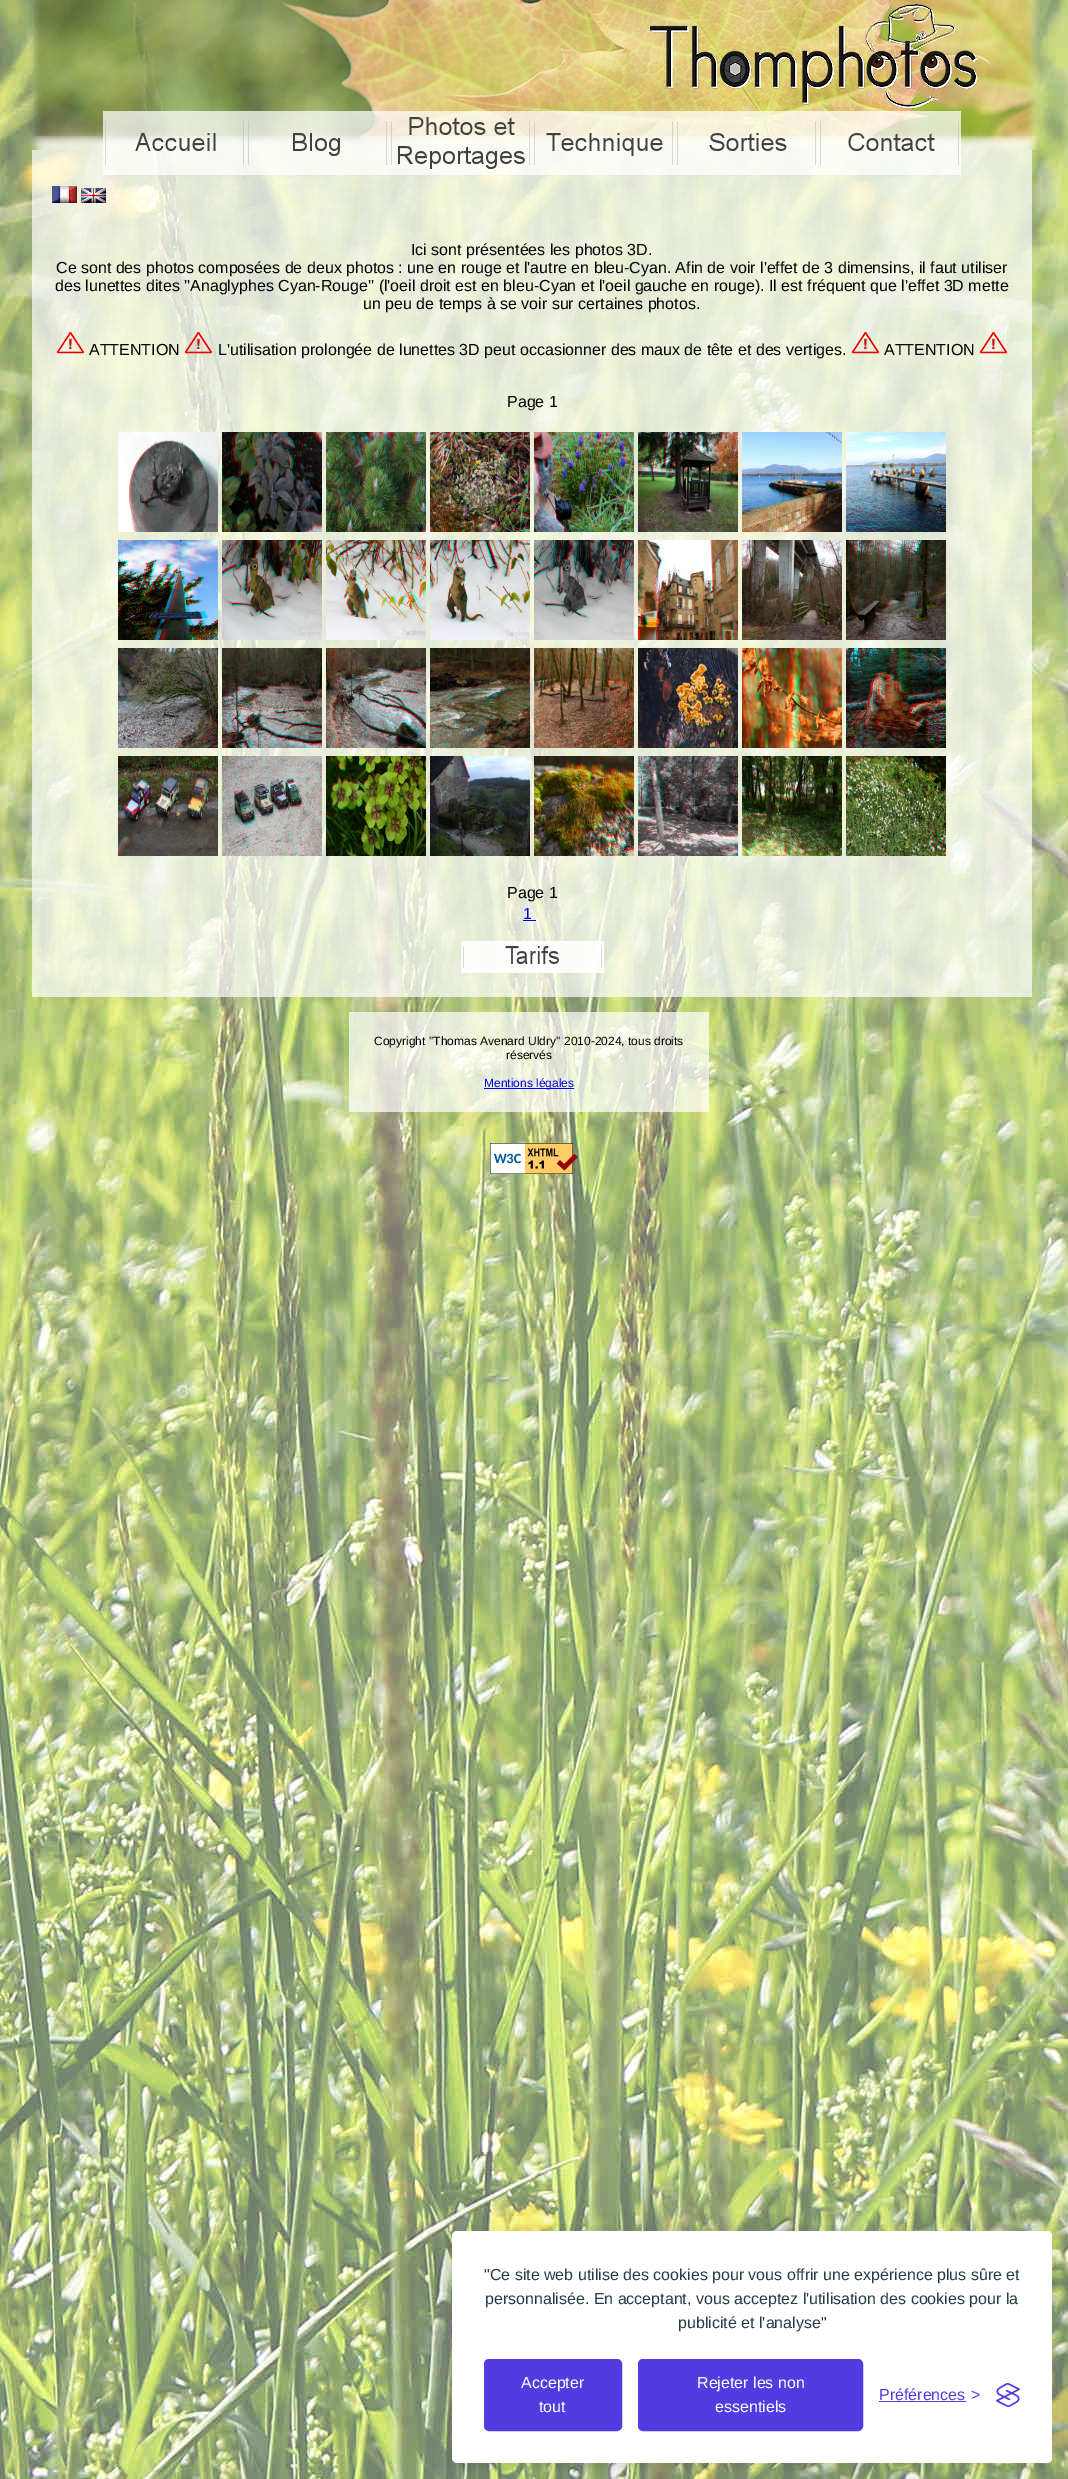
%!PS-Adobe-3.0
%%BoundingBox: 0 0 1068 2479
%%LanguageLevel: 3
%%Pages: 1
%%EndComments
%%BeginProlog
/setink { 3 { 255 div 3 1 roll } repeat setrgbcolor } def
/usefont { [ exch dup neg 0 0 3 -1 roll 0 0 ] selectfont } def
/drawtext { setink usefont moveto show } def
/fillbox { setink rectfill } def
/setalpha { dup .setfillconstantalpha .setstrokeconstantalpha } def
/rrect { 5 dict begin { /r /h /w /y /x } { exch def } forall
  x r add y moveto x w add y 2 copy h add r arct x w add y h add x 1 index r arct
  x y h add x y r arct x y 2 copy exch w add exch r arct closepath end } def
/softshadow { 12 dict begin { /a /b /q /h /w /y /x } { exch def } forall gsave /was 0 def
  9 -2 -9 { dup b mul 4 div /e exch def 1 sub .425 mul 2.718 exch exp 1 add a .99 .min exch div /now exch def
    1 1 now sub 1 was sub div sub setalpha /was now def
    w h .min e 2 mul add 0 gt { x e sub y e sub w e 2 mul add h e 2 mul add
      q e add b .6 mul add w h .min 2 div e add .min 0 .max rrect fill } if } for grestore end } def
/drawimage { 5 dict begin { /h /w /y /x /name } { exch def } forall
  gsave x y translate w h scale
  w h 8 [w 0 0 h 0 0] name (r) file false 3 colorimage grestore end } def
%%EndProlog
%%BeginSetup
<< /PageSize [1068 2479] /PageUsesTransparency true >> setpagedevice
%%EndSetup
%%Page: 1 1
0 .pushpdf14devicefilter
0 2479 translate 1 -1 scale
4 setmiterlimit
0 0 1068 2479 255 255 255 fillbox
(assets/img1.rgb) 0 0 1068 2479 drawimage
(assets/img2.rgb) 28 0 1013 150 drawimage
0.7 setalpha
32 150 1000 847 255 255 255 fillbox
1 setalpha
(assets/img3.rgb) 103 111 143 64 drawimage
(assets/img4.rgb) 246 111 143 64 drawimage
(assets/img5.rgb) 389 111 143 64 drawimage
(assets/img6.rgb) 532 111 143 64 drawimage
(assets/img7.rgb) 675 111 143 64 drawimage
(assets/img8.rgb) 818 111 143 64 drawimage
(assets/img9.rgb) 52 186 25 17 drawimage
(assets/img10.rgb) 81 188 25 15 drawimage
(Ici sont présentées les photos 3D.) 411 255 /LiberationSans-Regular 16 0 0 0 drawtext
(Ce sont des photos composées de deux photos : une en rouge et l'autre en bleu-Cyan. Afin de voir l'effet de 3 dimensins, il faut utiliser) 56 273 /LiberationSans-Regular 16 0 0 0 drawtext
(des lunettes dites ''Anaglyphes Cyan-Rouge'' \(l'oeil droit est en bleu-Cyan et l'oeil gauche en rouge\). Il est fréquent que l'effet 3D mette) 55 291 /LiberationSans-Regular 16 0 0 0 drawtext
(un peu de temps à se voir sur certaines photos.) 363 309 /LiberationSans-Regular 16 0 0 0 drawtext
(assets/img11.rgb) 56 332 28 22 drawimage
(ATTENTION) 89 355 /LiberationSans-Regular 16 0 0 0 drawtext
(assets/img12.rgb) 184 332 28 22 drawimage
(L'utilisation prolongée de lunettes 3D peut occasionner des maux de tête et des vertiges.) 218 355 /LiberationSans-Regular 16 0 0 0 drawtext
(assets/img13.rgb) 851 332 28 22 drawimage
(ATTENTION) 884 355 /LiberationSans-Regular 16 0 0 0 drawtext
(assets/img14.rgb) 979 332 28 22 drawimage
(Page 1) 507 407 /LiberationSans-Regular 16 0 0 0 drawtext
(assets/img15.rgb) 118 432 100 100 drawimage
(assets/img16.rgb) 222 432 100 100 drawimage
(assets/img17.rgb) 326 432 100 100 drawimage
(assets/img18.rgb) 430 432 100 100 drawimage
(assets/img19.rgb) 534 432 100 100 drawimage
(assets/img20.rgb) 638 432 100 100 drawimage
(assets/img21.rgb) 742 432 100 100 drawimage
(assets/img22.rgb) 846 432 100 100 drawimage
(assets/img23.rgb) 118 540 100 100 drawimage
(assets/img24.rgb) 222 540 100 100 drawimage
(assets/img25.rgb) 326 540 100 100 drawimage
(assets/img26.rgb) 430 540 100 100 drawimage
(assets/img27.rgb) 534 540 100 100 drawimage
(assets/img28.rgb) 638 540 100 100 drawimage
(assets/img29.rgb) 742 540 100 100 drawimage
(assets/img30.rgb) 846 540 100 100 drawimage
(assets/img31.rgb) 118 648 100 100 drawimage
(assets/img32.rgb) 222 648 100 100 drawimage
(assets/img33.rgb) 326 648 100 100 drawimage
(assets/img34.rgb) 430 648 100 100 drawimage
(assets/img35.rgb) 534 648 100 100 drawimage
(assets/img36.rgb) 638 648 100 100 drawimage
(assets/img37.rgb) 742 648 100 100 drawimage
(assets/img38.rgb) 846 648 100 100 drawimage
(assets/img39.rgb) 118 756 100 100 drawimage
(assets/img40.rgb) 222 756 100 100 drawimage
(assets/img41.rgb) 326 756 100 100 drawimage
(assets/img42.rgb) 430 756 100 100 drawimage
(assets/img43.rgb) 534 756 100 100 drawimage
(assets/img44.rgb) 638 756 100 100 drawimage
(assets/img45.rgb) 742 756 100 100 drawimage
(assets/img46.rgb) 846 756 100 100 drawimage
(Page 1) 507 898 /LiberationSans-Regular 16 0 0 0 drawtext
(1) 523 919 /LiberationSans-Regular 16 0 0 238 drawtext
523 920 13 1 0 0 238 fillbox
(assets/img47.rgb) 461 941 143 32 drawimage
0.7 setalpha
349 1012 360 100 255 255 255 fillbox
1 setalpha
(Copyright ''Thomas Avenard Uldry'' 2010-2024, tous droits) 374 1045 /LiberationSans-Regular 12 0 0 0 drawtext
(réservés) 506 1059 /LiberationSans-Regular 12 0 0 0 drawtext
484 1088 90 1 0 0 238 fillbox
(Mentions légales) 484 1087 /LiberationSans-Regular 12 0 0 238 drawtext
(assets/img48.rgb) 490 1143 88 31 drawimage
0 0 0 setink
452 2231 600 232 5 25 0.1 softshadow
447 2236 600 232 5 5 0.07 softshadow
255 255 255 setink
452 2231 600 232 5 rrect fill
("Ce site web utilise des cookies pour vous offrir une expérience plus sûre et) 484 2280 /LiberationSans-Regular 16 37 59 72 drawtext
(personnalisée. En acceptant, vous acceptez l'utilisation des cookies pour la) 485 2304 /LiberationSans-Regular 16 37 59 72 drawtext
(publicité et l'analyse") 678 2328 /LiberationSans-Regular 16 37 59 72 drawtext
83 59 226 setink
485 2360 136 70 4 rrect gsave fill grestore
2 setlinewidth
stroke
(Accepter) 521 2388 /LiberationSans-Regular 16 255 255 255 drawtext
(tout) 539 2412 /LiberationSans-Regular 16 255 255 255 drawtext
83 59 226 setink
639 2360 223 70 4 rrect gsave fill grestore
stroke
(Rejeter les non) 697 2388 /LiberationSans-Regular 16 255 255 255 drawtext
(essentiels) 715 2412 /LiberationSans-Regular 16 255 255 255 drawtext
(Préférences) 879 2400 /LiberationSans-Regular 16 83 59 226 drawtext
879 2401 87 1 83 59 226 fillbox
(>) 971 2400 /LiberationSans-Regular 16 83 59 226 drawtext
(assets/img49.rgb) 996 2383 24 24 drawimage
.poppdf14devicefilter showpage
%%EOF
